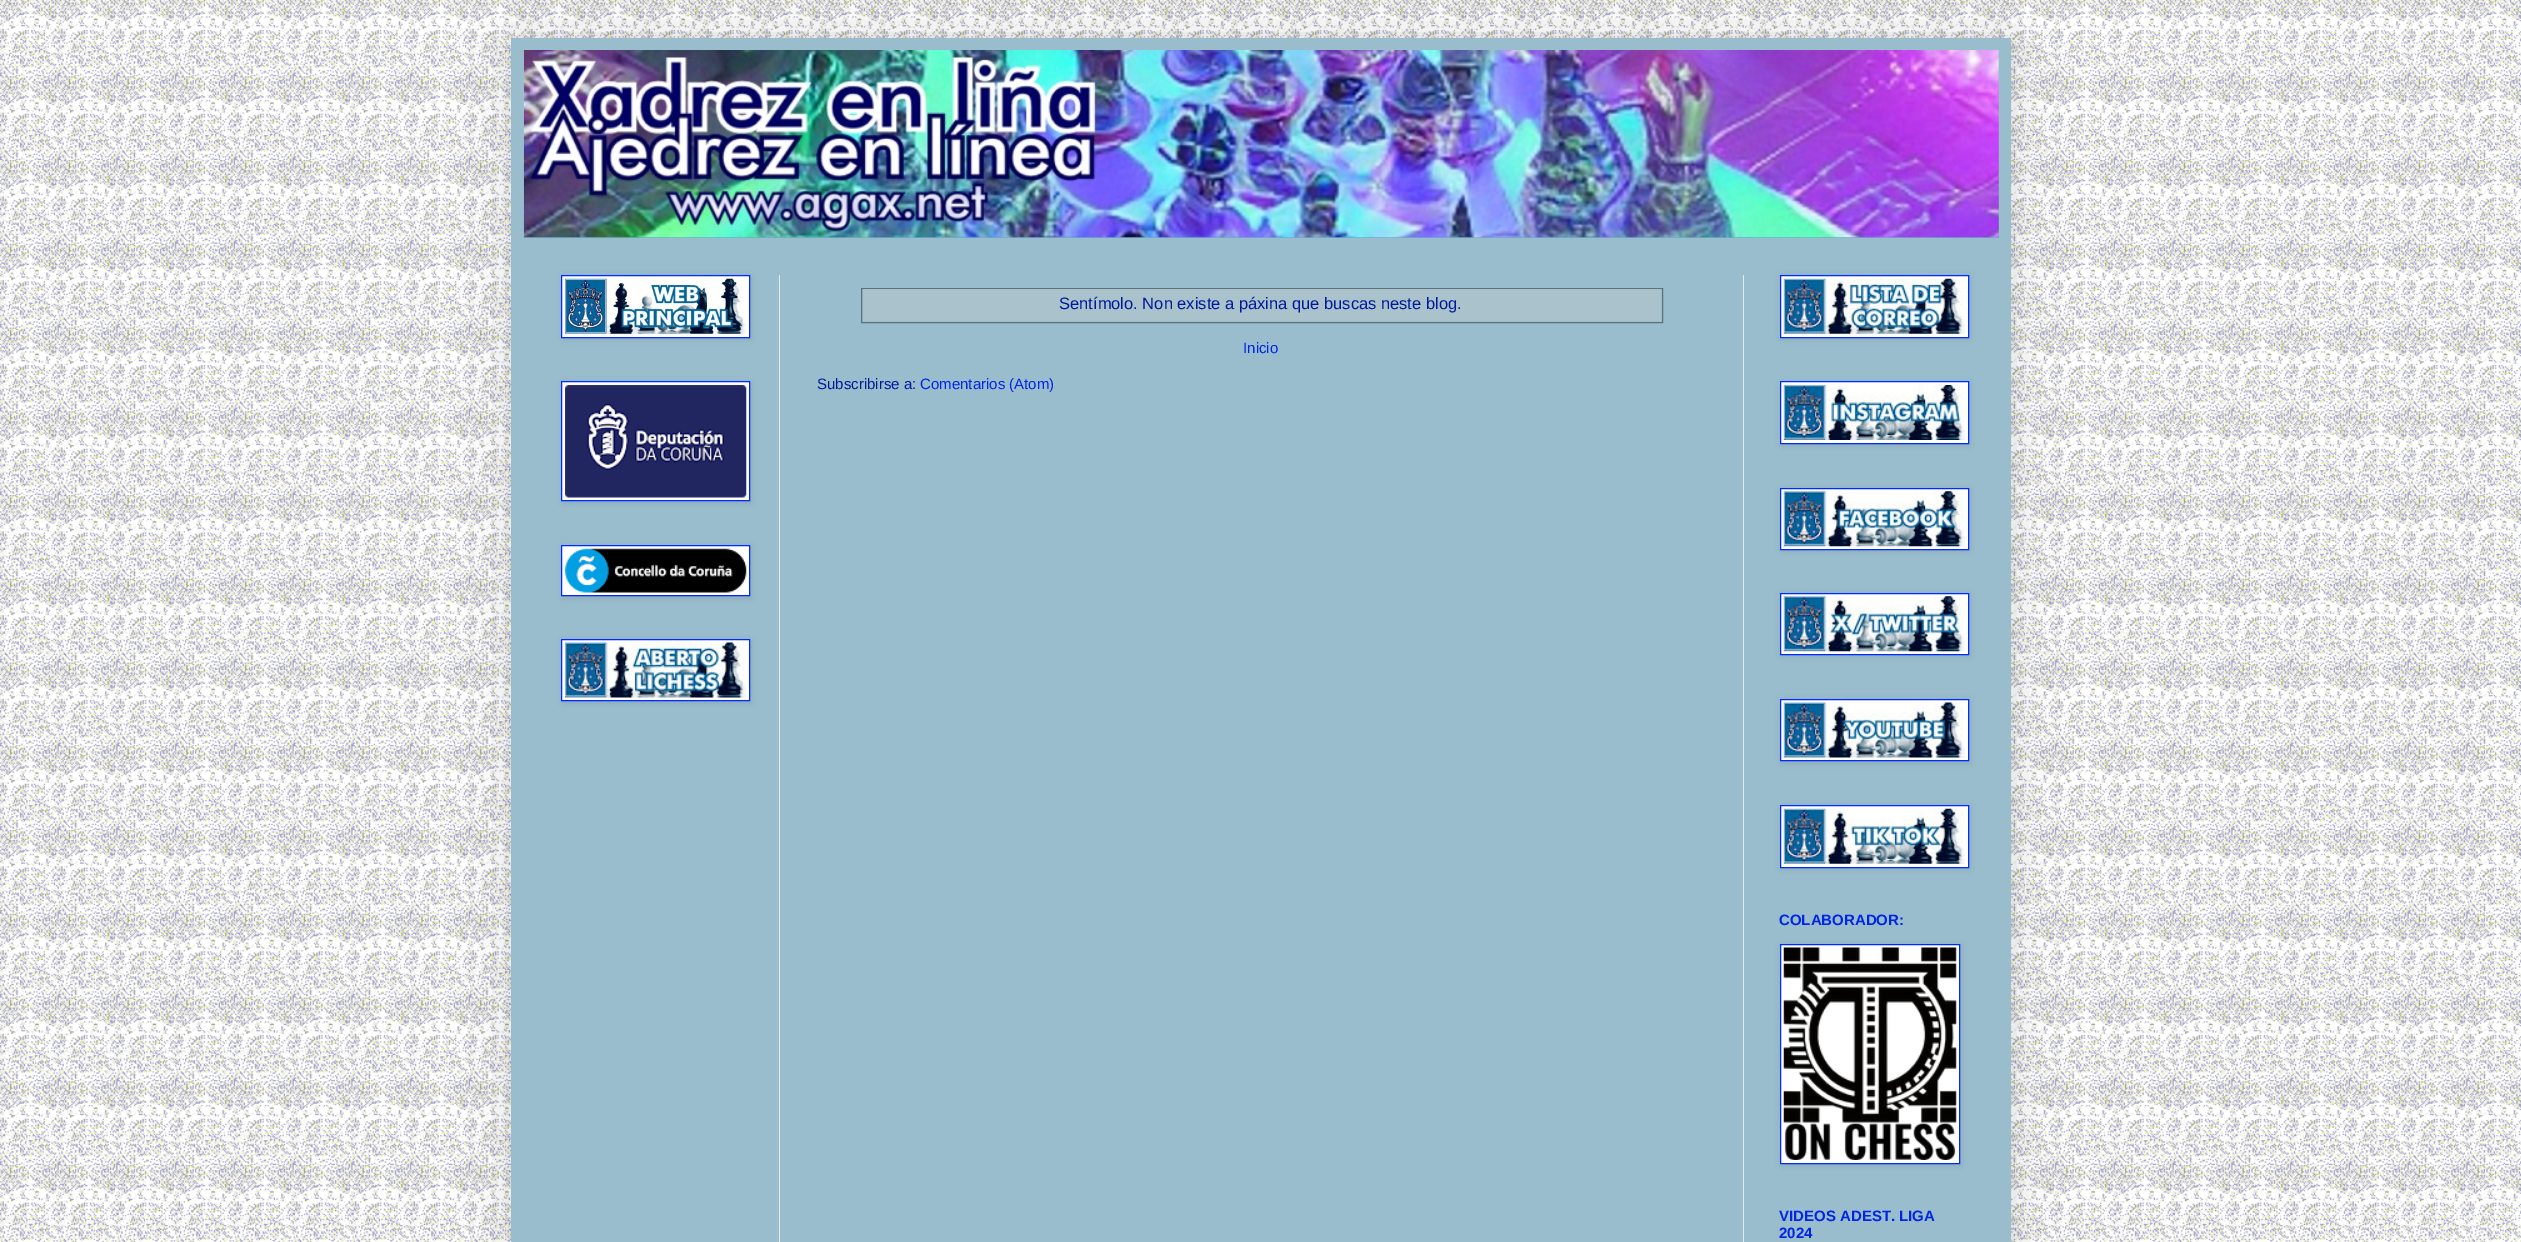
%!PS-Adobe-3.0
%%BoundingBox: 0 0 2521 1242
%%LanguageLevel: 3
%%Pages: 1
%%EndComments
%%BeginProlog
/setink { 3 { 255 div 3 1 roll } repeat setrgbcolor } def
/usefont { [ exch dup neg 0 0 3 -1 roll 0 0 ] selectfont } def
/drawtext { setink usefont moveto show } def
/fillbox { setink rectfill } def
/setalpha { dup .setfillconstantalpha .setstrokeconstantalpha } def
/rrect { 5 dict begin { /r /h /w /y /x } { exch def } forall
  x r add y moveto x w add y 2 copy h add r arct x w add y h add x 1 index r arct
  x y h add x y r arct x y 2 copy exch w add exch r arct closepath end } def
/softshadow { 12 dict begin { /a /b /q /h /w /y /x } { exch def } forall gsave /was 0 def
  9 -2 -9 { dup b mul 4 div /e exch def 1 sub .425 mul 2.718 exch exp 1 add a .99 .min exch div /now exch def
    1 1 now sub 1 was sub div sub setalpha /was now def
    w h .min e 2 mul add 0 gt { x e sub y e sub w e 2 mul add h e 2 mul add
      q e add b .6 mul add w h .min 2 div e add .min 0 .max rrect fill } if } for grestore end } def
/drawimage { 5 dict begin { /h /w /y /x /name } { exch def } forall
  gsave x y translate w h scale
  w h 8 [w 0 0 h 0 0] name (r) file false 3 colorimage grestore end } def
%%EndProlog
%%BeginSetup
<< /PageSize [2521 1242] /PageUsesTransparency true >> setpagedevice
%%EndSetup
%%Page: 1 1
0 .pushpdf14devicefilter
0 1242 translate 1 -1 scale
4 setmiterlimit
0 0 2521 1242 255 255 255 fillbox
(assets/img1.rgb) 0 500 2521 742 drawimage
(assets/img2.rgb) 0 0 2521 500 drawimage
0 0 0 setink
511 38 1500 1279 0 25 0.15 softshadow
511 38 1500 1204 153 189 204 fillbox
524 50 1475 188 102 175 204 fillbox
(assets/img3.rgb) 523 50 1476 159 drawimage
(assets/img4.rgb) 523 50 1476 188 drawimage
779 275 1 967 221 238 237 fillbox
1743 275 1 967 221 238 237 fillbox
0 0 0 setink
563 276 188 63 0 3 0.1 softshadow
255 255 255 setink
561.5 275.5 moveto 749.5 275.5 lineto 749.5 337.5 lineto 561.5 337.5 lineto closepath gsave fill grestore
0 41 255 setink
stroke
(assets/img5.rgb) 565 278 181 56 drawimage
0 0 0 setink
563 383 188 120 0 3 0.1 softshadow
255 255 255 setink
561.5 381.5 moveto 749.5 381.5 lineto 749.5 500.5 lineto 561.5 500.5 lineto closepath gsave fill grestore
0 41 255 setink
stroke
(assets/img6.rgb) 565 385 182 113 drawimage
0 0 0 setink
563 546 188 52 0 3 0.1 softshadow
255 255 255 setink
561.5 545.5 moveto 749.5 545.5 lineto 749.5 595.5 lineto 561.5 595.5 lineto closepath gsave fill grestore
0 41 255 setink
stroke
(assets/img7.rgb) 565 548 182 45 drawimage
0 0 0 setink
563 640 188 63 0 3 0.1 softshadow
255 255 255 setink
561.5 639.5 moveto 749.5 639.5 lineto 749.5 700.5 lineto 561.5 700.5 lineto closepath gsave fill grestore
0 41 255 setink
stroke
(assets/img8.rgb) 565 642 181 56 drawimage
92 113 122 setink
861.5 288.5 801 34 rectstroke
863 289 798 32 169 194 204 fillbox
(Sentímolo. Non existe a páxina que buscas neste blog.) 1059 309 /LiberationSans-Regular 16.5 0 25 153 drawtext
(Inicio) 1243 353 /LiberationSans-Regular 15 0 37 229 drawtext
(Subscribirse a:) 817 389 /LiberationSans-Regular 15 0 25 153 drawtext
(Comentarios \(Atom\)) 920 389 /LiberationSans-Regular 15 0 37 229 drawtext
0 0 0 setink
1781 276 189 63 0 3 0.1 softshadow
255 255 255 setink
1780.5 275.5 moveto 1968.5 275.5 lineto 1968.5 337.5 lineto 1780.5 337.5 lineto closepath gsave fill grestore
0 41 255 setink
stroke
(assets/img9.rgb) 1783 278 182 56 drawimage
0 0 0 setink
1781 383 189 62 0 3 0.1 softshadow
255 255 255 setink
1780.5 381.5 moveto 1968.5 381.5 lineto 1968.5 443.5 lineto 1780.5 443.5 lineto closepath gsave fill grestore
0 41 255 setink
stroke
(assets/img10.rgb) 1783 385 182 55 drawimage
0 0 0 setink
1781 489 189 62 0 3 0.1 softshadow
255 255 255 setink
1780.5 488.5 moveto 1968.5 488.5 lineto 1968.5 549.5 lineto 1780.5 549.5 lineto closepath gsave fill grestore
0 41 255 setink
stroke
(assets/img11.rgb) 1783 491 182 56 drawimage
0 0 0 setink
1781 594 189 62 0 3 0.1 softshadow
255 255 255 setink
1780.5 593.5 moveto 1968.5 593.5 lineto 1968.5 654.5 lineto 1780.5 654.5 lineto closepath gsave fill grestore
0 41 255 setink
stroke
(assets/img12.rgb) 1783 596 182 56 drawimage
0 0 0 setink
1781 700 189 63 0 3 0.1 softshadow
255 255 255 setink
1780.5 699.5 moveto 1968.5 699.5 lineto 1968.5 760.5 lineto 1780.5 760.5 lineto closepath gsave fill grestore
0 41 255 setink
stroke
(assets/img13.rgb) 1783 702 182 56 drawimage
0 0 0 setink
1781 806 189 63 0 3 0.1 softshadow
255 255 255 setink
1780.5 805.5 moveto 1968.5 805.5 lineto 1968.5 867.5 lineto 1780.5 867.5 lineto closepath gsave fill grestore
0 41 255 setink
stroke
(assets/img14.rgb) 1783 808 182 56 drawimage
(COLABORADOR:) 1779 925 /LiberationSans-Bold 15 0 37 229 drawtext
0 0 0 setink
1781 945 180 220 0 3 0.1 softshadow
255 255 255 setink
1780.5 944.5 moveto 1959.5 944.5 lineto 1959.5 1163.5 lineto 1780.5 1163.5 lineto closepath gsave fill grestore
0 41 255 setink
stroke
(assets/img15.rgb) 1783 947 174 213 drawimage
(VIDEOS ADEST. LIGA) 1779 1221 /LiberationSans-Bold 15 0 37 229 drawtext
(2024) 1779 1238 /LiberationSans-Bold 15 0 37 229 drawtext
.poppdf14devicefilter showpage
%%EOF
